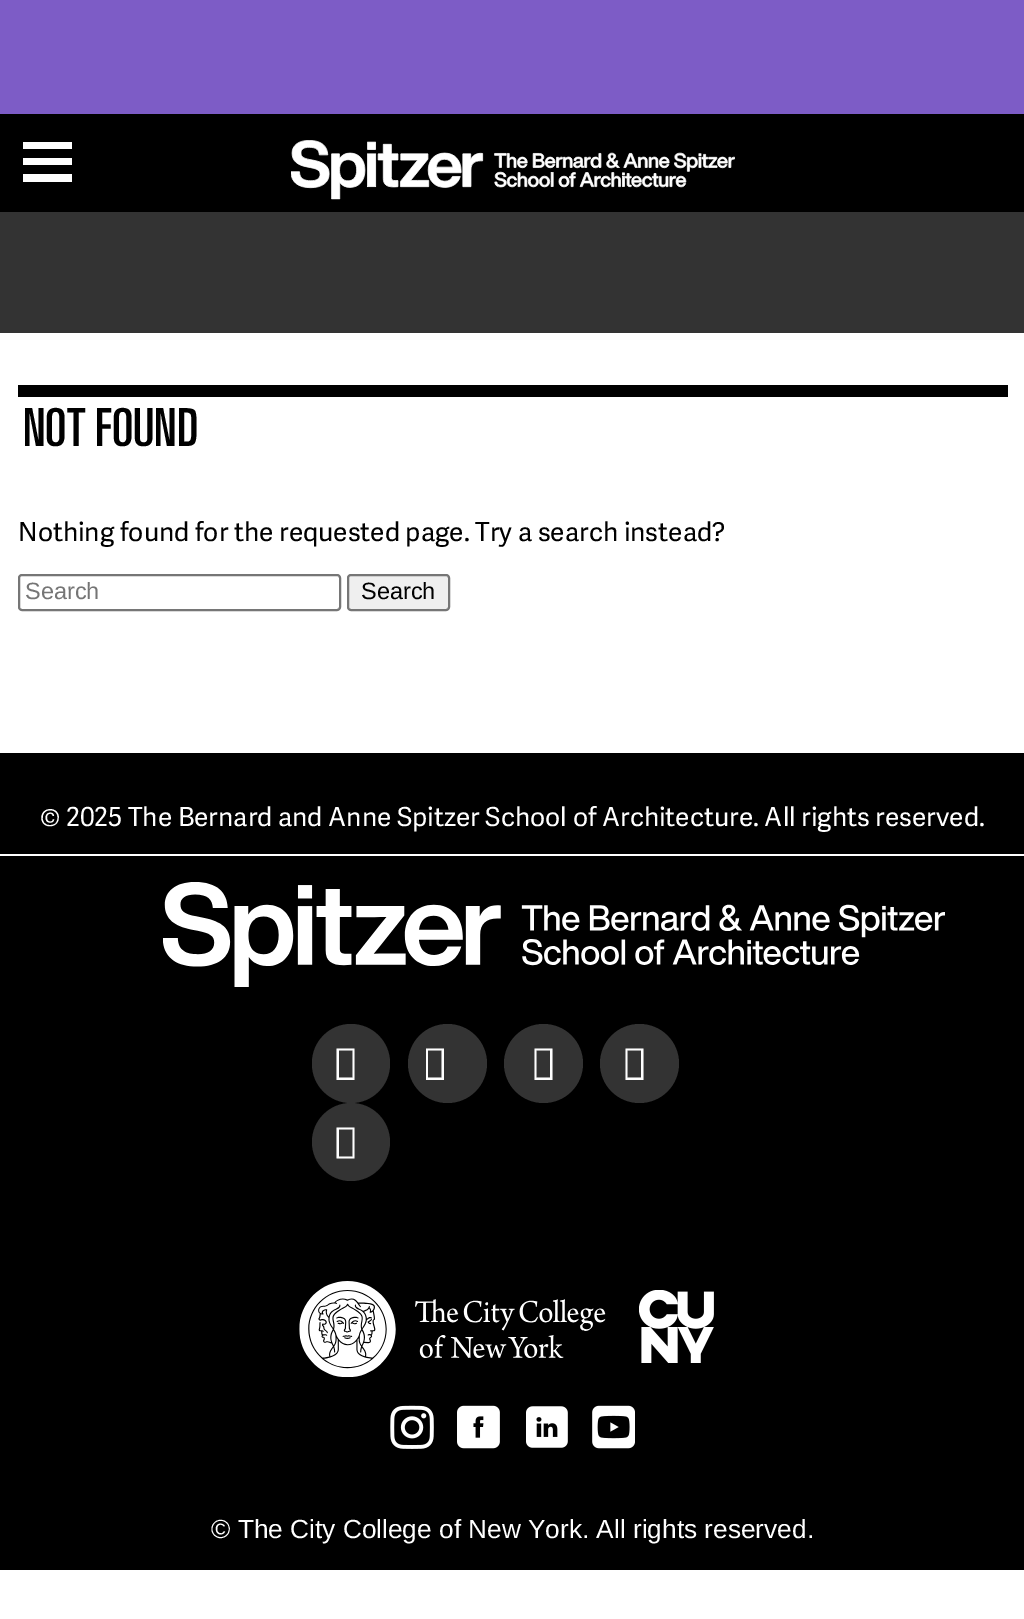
%!PS-Adobe-3.0
%%BoundingBox: 0 0 1024 1619
%%LanguageLevel: 3
%%Pages: 1
%%EndComments
%%BeginProlog
/setink { 3 { 255 div 3 1 roll } repeat setrgbcolor } def
/usefont { [ exch dup neg 0 0 3 -1 roll 0 0 ] selectfont } def
/drawtext { setink usefont moveto show } def
/fillbox { setink rectfill } def
/disc { newpath 0 360 arc closepath } def
/rrect { 5 dict begin { /r /h /w /y /x } { exch def } forall
  x r add y moveto x w add y 2 copy h add r arct x w add y h add x 1 index r arct
  x y h add x y r arct x y 2 copy exch w add exch r arct closepath end } def
/drawimage { 5 dict begin { /h /w /y /x /name } { exch def } forall
  gsave x y translate w h scale
  w h 8 [w 0 0 h 0 0] name (r) file false 3 colorimage grestore end } def
%%EndProlog
%%BeginSetup
<< /PageSize [1024 1619] >> setpagedevice
%%EndSetup
%%Page: 1 1
0 1619 translate 1 -1 scale
4 setmiterlimit
0 0 1024 1619 255 255 255 fillbox
0 0 1024 114 125 92 198 fillbox
0 212 1024 121 51 51 51 fillbox
0 114 1024 98 0 0 0 fillbox
23 142 49 7 255 255 255 fillbox
23 158 49 7 255 255 255 fillbox
23 174 49 8 255 255 255 fillbox
(assets/img1.rgb) 291 140 444 60 drawimage
18 385 990 12 0 0 0 fillbox
(NOT FOUND) 23 446 /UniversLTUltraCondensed-Regular 52.5 0 0 0 drawtext
(Nothing found for the requested page. Try a search instead?) 18 541 /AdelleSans-Regular 26.25 0 0 0 drawtext
118 118 118 setink
2 setlinewidth
19 575 321 35 3 rrect stroke
(Search) 25 599 /LiberationSans-Regular 23.5 117 117 117 drawtext
239 239 239 setink
348 575 101 35 3 rrect gsave fill grestore
118 118 118 setink
stroke
(Search) 361 599 /LiberationSans-Regular 23.5 0 0 0 drawtext
0 753 1024 817 0 0 0 fillbox
0 854 1024 2 255 255 255 fillbox
(© 2025 The Bernard and Anne Spitzer School of Architecture. All rights reserved.) 40 826 /AdelleSans-Regular 26.25 255 255 255 drawtext
(assets/img2.rgb) 163 882 782 105 drawimage
51 51 51 setink
312 1024 78 79 39 rrect fill
255 255 255 setink
336.5 1080 moveto 336.5 1048.5 lineto 354.5 1048.5 lineto 354.5 1080 lineto closepath 339 1077.5 moveto 352.5 1077.5 lineto 352.5 1050.5 lineto 339 1050.5 lineto closepath fill
51 51 51 setink
447.5 1063.5 39.5 disc fill
255 255 255 setink
426 1080 moveto 426 1048.5 lineto 444 1048.5 lineto 444 1080 lineto closepath 428 1077.5 moveto 441.5 1077.5 lineto 441.5 1050.5 lineto 428 1050.5 lineto closepath fill
51 51 51 setink
543.5 1063.5 39.5 disc fill
255 255 255 setink
534.5 1080 moveto 534.5 1048.5 lineto 552.5 1048.5 lineto 552.5 1080 lineto closepath 536.5 1077.5 moveto 550 1077.5 lineto 550 1050.5 lineto 536.5 1050.5 lineto closepath fill
51 51 51 setink
639.5 1063.5 39.5 disc fill
255 255 255 setink
625.5 1080 moveto 625.5 1048.5 lineto 643.5 1048.5 lineto 643.5 1080 lineto closepath 627.5 1077.5 moveto 641 1077.5 lineto 641 1050.5 lineto 627.5 1050.5 lineto closepath fill
51 51 51 setink
351 1142 39 disc fill
255 255 255 setink
336.5 1158.5 moveto 336.5 1127.5 lineto 354.5 1127.5 lineto 354.5 1158.5 lineto closepath 339 1156.5 moveto 352.5 1156.5 lineto 352.5 1129.5 lineto 339 1129.5 lineto closepath fill
(assets/img3.rgb) 299 1281 307 96 drawimage
(assets/img4.rgb) 639 1290 75 73 drawimage
(assets/img5.rgb) 390 1405 44 44 drawimage
(assets/img6.rgb) 457 1405 43 44 drawimage
(assets/img7.rgb) 526 1406 42 42 drawimage
(assets/img8.rgb) 592 1405 43 44 drawimage
(© The City College of New York. All rights reserved.) 211 1538 /LiberationSans-Regular 26.25 255 255 255 drawtext
showpage
%%EOF
